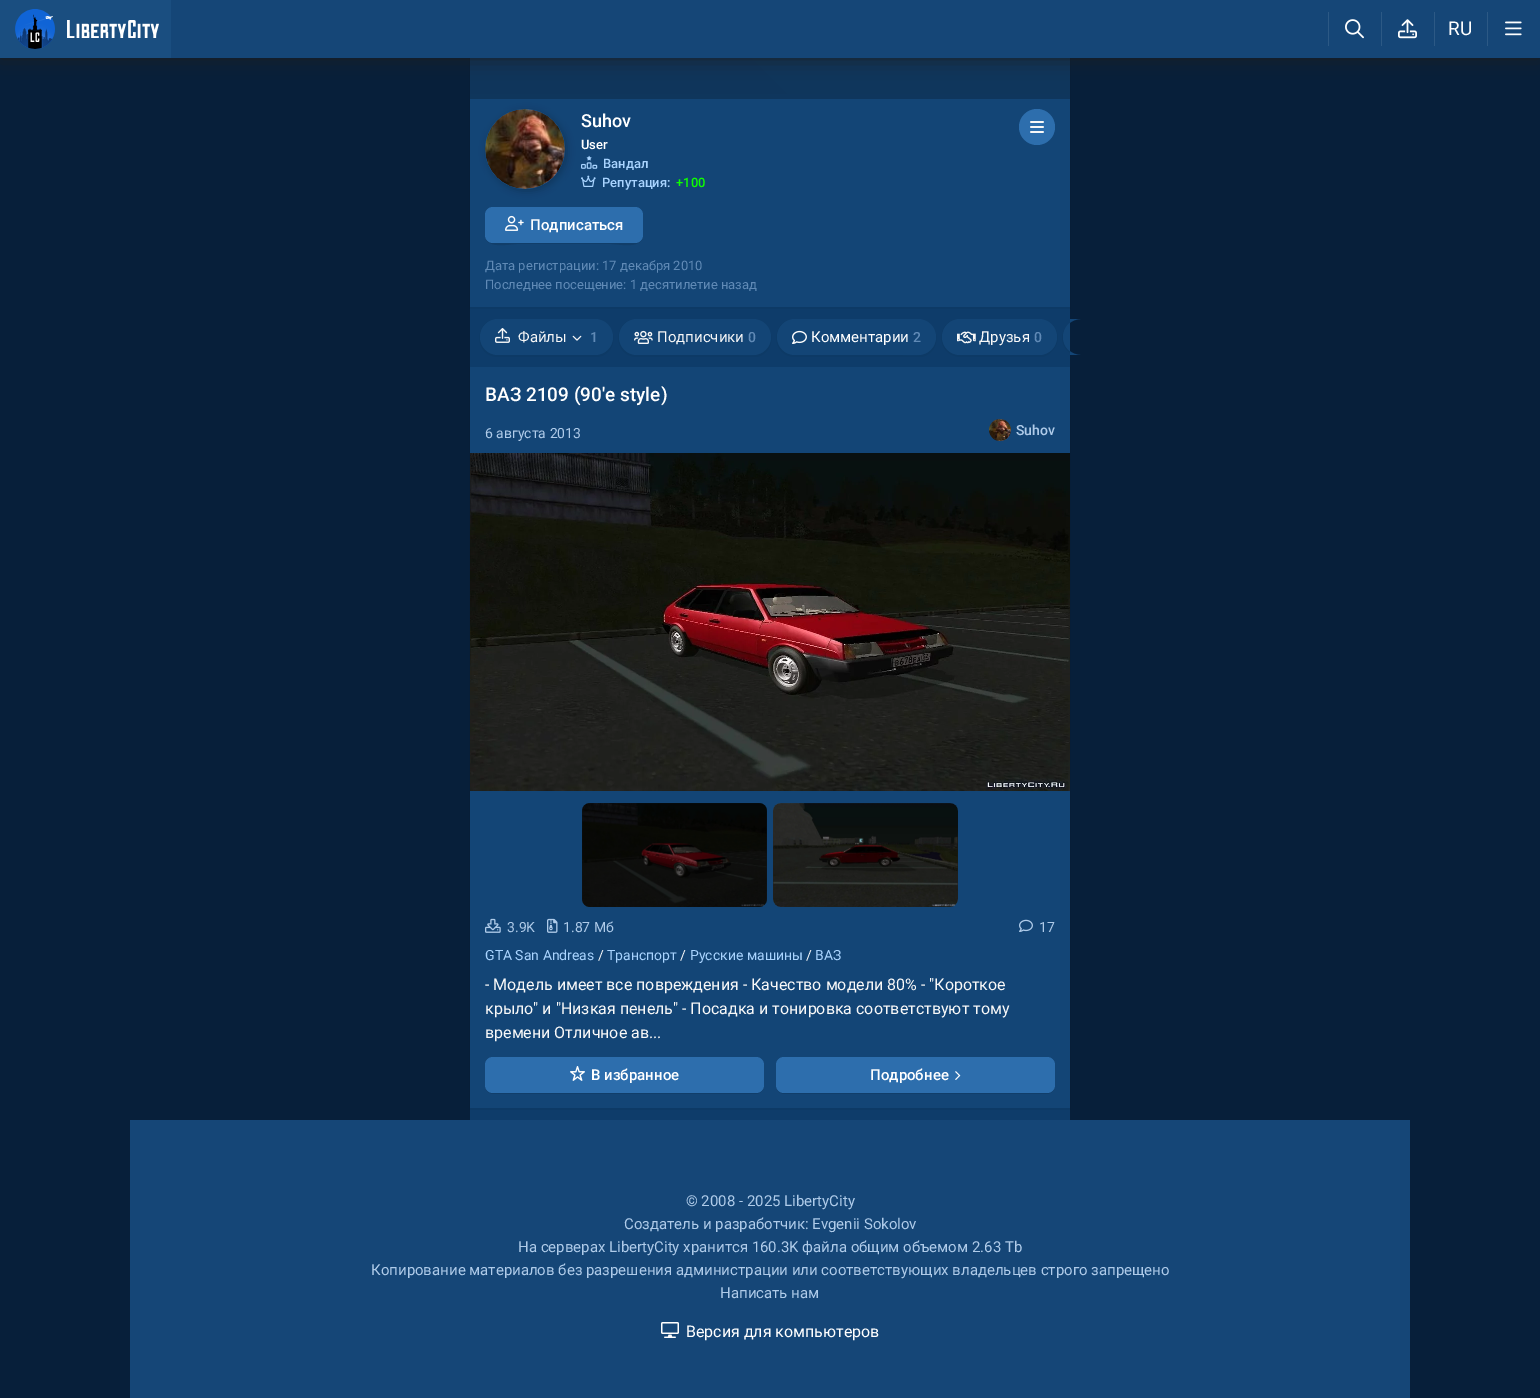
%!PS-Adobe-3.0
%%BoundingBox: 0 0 1540 1398
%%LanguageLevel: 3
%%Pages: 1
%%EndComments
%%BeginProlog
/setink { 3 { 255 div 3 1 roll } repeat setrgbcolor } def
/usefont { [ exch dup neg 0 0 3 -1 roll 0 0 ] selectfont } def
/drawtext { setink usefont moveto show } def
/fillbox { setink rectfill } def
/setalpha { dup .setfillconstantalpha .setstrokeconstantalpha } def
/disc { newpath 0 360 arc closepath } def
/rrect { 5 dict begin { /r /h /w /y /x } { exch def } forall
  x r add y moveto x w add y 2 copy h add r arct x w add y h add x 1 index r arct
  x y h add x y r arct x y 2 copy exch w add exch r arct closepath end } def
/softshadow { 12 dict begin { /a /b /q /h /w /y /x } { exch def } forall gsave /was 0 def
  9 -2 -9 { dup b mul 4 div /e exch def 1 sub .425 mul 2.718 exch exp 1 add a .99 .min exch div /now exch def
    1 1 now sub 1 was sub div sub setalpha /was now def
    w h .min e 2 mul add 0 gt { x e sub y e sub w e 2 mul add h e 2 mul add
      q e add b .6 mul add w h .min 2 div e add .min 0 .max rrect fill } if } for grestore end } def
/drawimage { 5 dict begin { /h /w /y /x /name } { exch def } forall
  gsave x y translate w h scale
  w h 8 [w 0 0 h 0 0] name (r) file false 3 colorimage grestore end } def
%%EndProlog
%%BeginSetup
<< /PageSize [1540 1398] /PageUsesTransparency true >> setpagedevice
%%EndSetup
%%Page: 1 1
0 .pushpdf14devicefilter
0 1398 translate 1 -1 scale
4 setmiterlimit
0 0 1540 1398 7 31 58 fillbox
470 307 600 813 14 60 106 fillbox
0.04 setalpha
0 0 0 setink
469 -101 moveto 469 309 lineto 1071 309 lineto 1071 -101 lineto 1070 -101 lineto 1070 307 lineto 470 307 lineto 470 -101 lineto closepath fill
1 setalpha
gsave 470 58 moveto 1070 58 lineto 1070 94 lineto 470 94 lineto closepath clip newpath
<< /ShadingType 2 /ColorSpace /DeviceRGB /Coords [970 -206 570 194] /Extend [true true] /Function << /FunctionType 2 /Domain [0 1] /C0 [0.059 0.216 0.369] /C1 [0.059 0.208 0.357] /N 1 >> >> shfill grestore
28 28 28 setink
0 0 1540 58 0 10 0.93 softshadow
171 0 1369 58 21 70 119 fillbox
0 0 171 58 26 78 128 fillbox
(assets/img1.rgb) 15 9 40 40 drawimage
(assets/img2.rgb) 67 20 92 18 drawimage
1328 12 1 34 44 89 133 fillbox
(assets/img3.rgb) 1345 19 19 20 drawimage
1381 12 1 34 44 89 133 fillbox
(assets/img4.rgb) 1398 19 19 20 drawimage
1434 12 1 34 44 89 133 fillbox
(RU) 1448 35 /Roboto-Regular 19 255 255 255 drawtext
1487 12 1 34 44 89 133 fillbox
(assets/img5.rgb) 1505 21 17 15 drawimage
470 99 600 208 19 69 118 fillbox
gsave 470 94 moveto 1070 94 lineto 1070 99 lineto 470 99 lineto closepath clip newpath
<< /ShadingType 2 /ColorSpace /DeviceRGB /Coords [970 -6 570 394] /Extend [true true] /Function << /FunctionType 2 /Domain [0 1] /C0 [0.059 0.216 0.369] /C1 [0.059 0.208 0.357] /N 1 >> >> shfill grestore
0 0 0 setink
487 111 80 80 40 4 0.23 softshadow
28 83 139 setink
525 149 40 disc fill
(assets/img6.rgb) 485 109 80 80 drawimage
(Suhov) 581 127 /Roboto-Medium 18 255 255 255 drawtext
(User) 581 149 /Roboto-Medium 13 255 255 255 drawtext
(assets/img7.rgb) 581 155 17 14 drawimage
(Вандал) 603 168 /Roboto-Medium 13 169 212 255 drawtext
(assets/img8.rgb) 581 175 15 12 drawimage
(Репутация:) 602 187 /Roboto-Medium 13 169 212 255 drawtext
(+100) 676 187 /Roboto-Medium 13 15 255 0 drawtext
45 110 173 setink
1037 127 18 disc fill
(assets/img9.rgb) 1030 121 14 12 drawimage
17 62 106 setink
485 235 moveto 485 250 510 244 517 244 curveto 611 244 lineto 618 244 643 250 643 235 curveto 643 239 639 243 635 243 curveto 493 243 lineto 489 243 485 239 485 235 curveto closepath fill
45 110 173 setink
485 207 158 36 8 rrect fill
(assets/img10.rgb) 505 215 19 16 drawimage
(Подписаться) 530 230 /Roboto-Medium 15 255 255 255 drawtext
(Дата регистрации: 17 декабря 2010) 485 270 /Roboto-Regular 13 96 138 182 drawtext
(Последнее посещение: 1 десятилетие назад) 485 289 /Roboto-Regular 13 96 138 182 drawtext
gsave
470 319 600 38 rectclip
13 58 102 setink
498 319 moveto 473 319 473 357 498 357 curveto 579 357 lineto 585 357 596 358 602 356 curveto 621 348 615 319 595 319 curveto 605 319 613 327 613 337 curveto 613 347 605 355 595 355 curveto 498 355 lineto 488 355 480 347 480 337 curveto 480 327 488 319 498 319 curveto closepath fill
grestore
19 69 118 setink
480 319 133 36 18 rrect fill
(assets/img11.rgb) 495 328 15 15 drawimage
(Файлы) 518 342 /Roboto-Regular 15 248 248 248 drawtext
(assets/img12.rgb) 572 335 10 6 drawimage
(1) 590 342 /Roboto-Medium 14 96 138 182 drawtext
gsave
470 319 600 38 rectclip
13 58 102 setink
637 319 moveto 612 319 612 357 637 357 curveto 734 357 lineto 740 357 753 359 760 356 curveto 779 348 773 319 753 319 curveto 772 319 778 346 760 354 curveto 753 357 739 355 734 355 curveto 637 355 lineto 613 355 614 319 637 319 curveto closepath fill
grestore
19 69 118 setink
619 319 152 36 18 rrect fill
(assets/img13.rgb) 634 330 19 14 drawimage
(Подписчики) 657 342 /Roboto-Regular 15 248 248 248 drawtext
(0) 748 342 /Roboto-Medium 14 96 138 182 drawtext
gsave
470 319 600 38 rectclip
13 58 102 setink
795 319 moveto 770 319 770 357 795 357 curveto 898 357 lineto 903 357 918 359 925 356 curveto 944 348 938 319 918 319 curveto 937 319 943 346 925 354 curveto 917 357 903 355 898 355 curveto 795 355 lineto 771 355 772 319 795 319 curveto closepath fill
grestore
19 69 118 setink
777 319 159 36 18 rrect fill
(assets/img14.rgb) 792 330 15 14 drawimage
(Комментарии) 811 342 /Roboto-Regular 15 255 255 255 drawtext
(2) 913 342 /Roboto-Medium 14 96 138 182 drawtext
13 58 102 setink
960 319 moveto 935 319 935 356 960 357 curveto 1043 357 lineto 1046 356 1050 354 1052 351 curveto 1064 340 1056 319 1039 319 curveto 1055 319 1063 339 1052 350 curveto 1049 352 1046 354 1043 355 curveto 960 355 lineto 936 354 937 319 960 319 curveto closepath fill
19 69 118 setink
942 319 115 36 18 rrect fill
(assets/img15.rgb) 957 331 19 13 drawimage
(Друзья) 979 342 /Roboto-Regular 15 248 248 248 drawtext
(0) 1034 342 /Roboto-Medium 14 96 138 182 drawtext
gsave
470 319 600 38 rectclip
13 58 102 setink
1081 319 moveto 1071 319 1062 328 1062 338 curveto 1062 348 1071 357 1081 357 curveto 1170 357 lineto 1180 357 1189 348 1189 338 curveto 1189 328 1180 319 1170 319 curveto 1189 319 1195 346 1177 354 curveto 1171 356 1161 355 1155 355 curveto 1081 355 lineto 1057 355 1058 319 1081 319 curveto closepath fill
grestore
19 69 118 setink
1081 319 moveto 1070 319 lineto 1070 355 lineto 1081 355 lineto 1071 355 1063 347 1063 337 curveto 1063 327 1071 319 1081 319 curveto closepath fill
0.04 setalpha
0 0 0 setink
469 367 moveto 469 1110 lineto 1071 1110 lineto 1071 367 lineto 1070 367 lineto 1070 1108 lineto 470 1108 lineto 470 367 lineto closepath fill
1 setalpha
470 367 600 741 19 69 118 fillbox
(ВАЗ 2109 \(90'е style\)) 485 401 /Roboto-Medium 19 255 255 255 drawtext
(6 августа 2013) 485 438 /Roboto-Regular 14 175 203 233 drawtext
(assets/img16.rgb) 989 419 22 22 drawimage
(Suhov) 1016 435 /Roboto-Medium 14 175 203 233 drawtext
(assets/img17.rgb) 470 453 600 338 drawimage
33 89 144 setink
582 803 185 104 8 rrect fill
(assets/img18.rgb) 582 803 185 104 drawimage
0.54 setalpha
0 0 0 setink
582 803 185 104 8 rrect fill
1 setalpha
33 89 144 setink
773 803 185 104 8 rrect fill
(assets/img19.rgb) 773 803 185 104 drawimage
(assets/img20.rgb) 485 918 16 15 drawimage
(3.9K) 507 932 /Roboto-Regular 14 175 203 233 drawtext
(assets/img21.rgb) 547 918 11 15 drawimage
(1.87 Мб) 563 932 /Roboto-Regular 14 175 203 233 drawtext
(assets/img22.rgb) 1019 919 14 13 drawimage
(17) 1039 932 /Roboto-Regular 14 175 203 233 drawtext
(GTA San Andreas) 485 960 /Roboto-Regular 14 169 212 255 drawtext
(/) 598 960 /Roboto-Regular 14 248 248 248 drawtext
(Транспорт) 607 960 /Roboto-Regular 14 169 212 255 drawtext
(/) 680 960 /Roboto-Regular 14 248 248 248 drawtext
(Русские машины) 690 960 /Roboto-Regular 14 169 212 255 drawtext
(/) 806 960 /Roboto-Regular 14 248 248 248 drawtext
(ВАЗ) 815 960 /Roboto-Regular 14 169 212 255 drawtext
(- Модель имеет все повреждения - Качество модели 80% - "Короткое) 485 990 /Roboto-Regular 16 248 248 248 drawtext
(крыло" и "Низкая пенель" - Посадка и тонировка соответствуют тому) 485 1014 /Roboto-Regular 16 248 248 248 drawtext
(времени Отличное ав...) 485 1038 /Roboto-Regular 16 248 248 248 drawtext
17 62 106 setink
485 1085 moveto 485 1086 lineto 485 1090 489 1094 493 1094 curveto 756 1094 lineto 760 1094 764 1090 764 1086 curveto 764 1085 lineto 764 1089 760 1093 756 1093 curveto 493 1093 lineto 489 1093 485 1089 485 1085 curveto closepath fill
45 110 173 setink
485 1057 279 36 8 rrect fill
(assets/img23.rgb) 570 1066 15 15 drawimage
(В избранное) 591 1080 /Roboto-Medium 15 255 255 255 drawtext
17 62 106 setink
776 1085 moveto 776 1086 lineto 776 1090 780 1094 784 1094 curveto 1047 1094 lineto 1051 1094 1055 1090 1055 1086 curveto 1055 1085 lineto 1055 1089 1051 1093 1047 1093 curveto 784 1093 lineto 780 1093 776 1089 776 1085 curveto closepath fill
45 110 173 setink
776 1057 279 36 8 rrect fill
(Подробнее) 870 1080 /Roboto-Medium 15 255 255 255 drawtext
(assets/img24.rgb) 955 1071 6 9 drawimage
130 1120 1280 278 21 70 119 fillbox
(© 2008 - 2025 LibertyCity) 686 1206 /Roboto-Regular 15 175 203 233 drawtext
(Создатель и разработчик: Evgenii Sokolov) 624 1229 /Roboto-Regular 15 175 203 233 drawtext
(На серверах LibertyCity хранится 160.3K файла общим объемом 2.63 Tb) 518 1252 /Roboto-Regular 15 175 203 233 drawtext
(Копирование материалов без разрешения администрации или соответствующих владельцев строго запрещено) 371 1275 /Roboto-Regular 15 175 203 233 drawtext
(Написать нам) 720 1298 /Roboto-Regular 15 175 203 233 drawtext
(assets/img25.rgb) 661 1322 18 16 drawimage
(Версия для компьютеров) 686 1337 /Roboto-Regular 16 255 255 255 drawtext
.poppdf14devicefilter showpage
%%EOF
